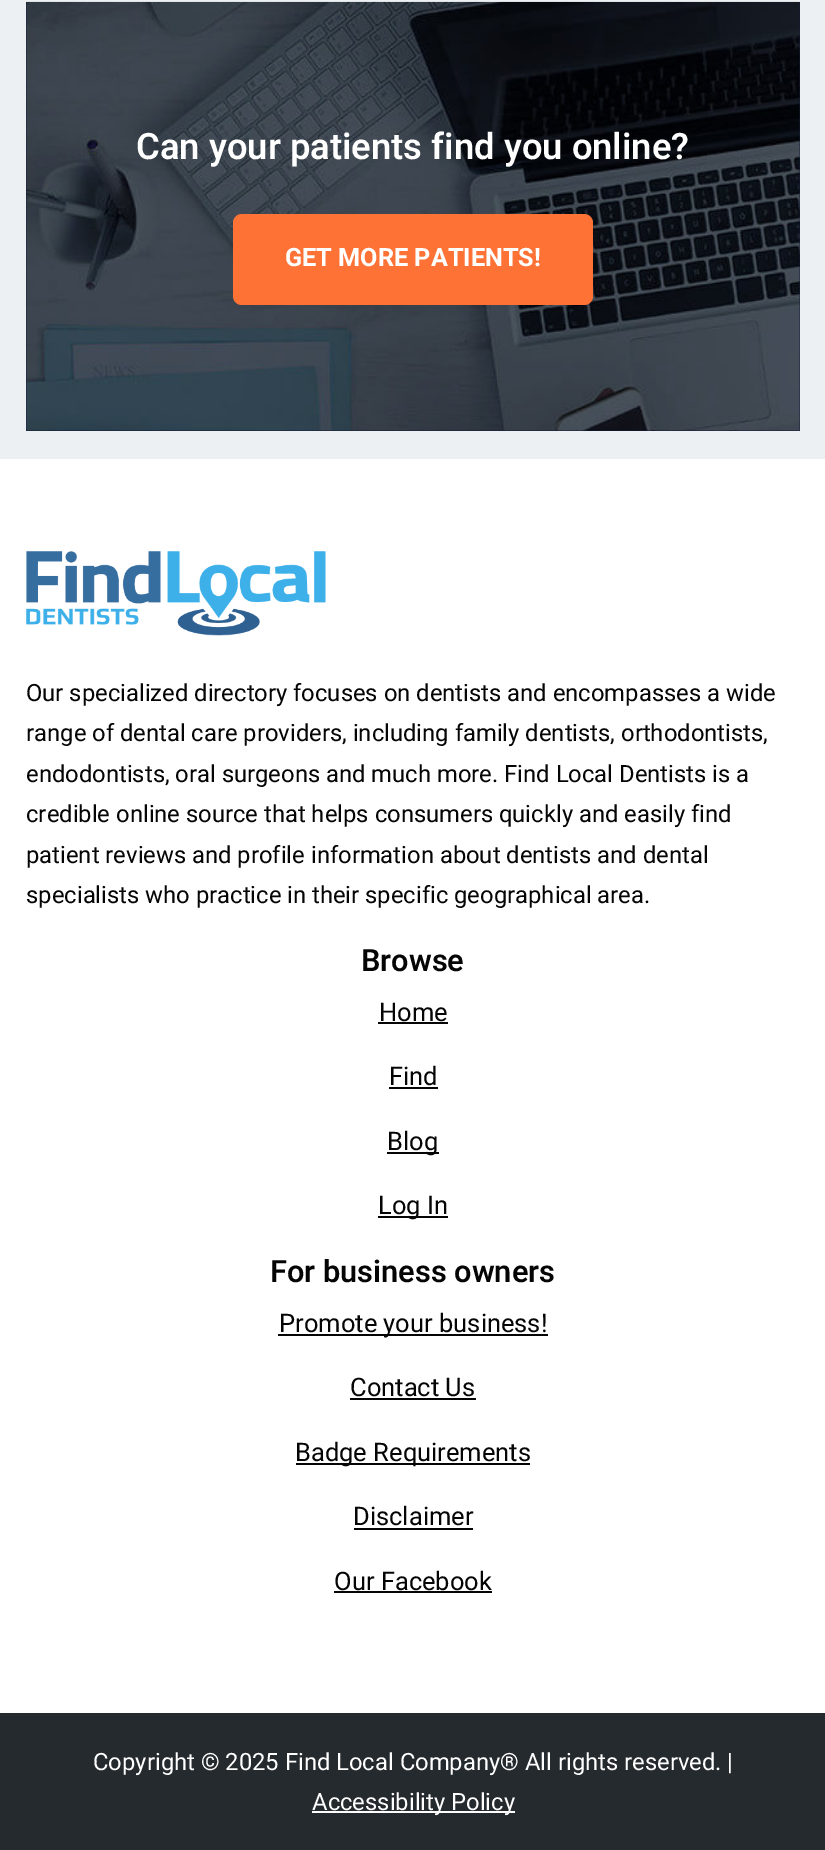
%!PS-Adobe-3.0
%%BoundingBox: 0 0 825 1850
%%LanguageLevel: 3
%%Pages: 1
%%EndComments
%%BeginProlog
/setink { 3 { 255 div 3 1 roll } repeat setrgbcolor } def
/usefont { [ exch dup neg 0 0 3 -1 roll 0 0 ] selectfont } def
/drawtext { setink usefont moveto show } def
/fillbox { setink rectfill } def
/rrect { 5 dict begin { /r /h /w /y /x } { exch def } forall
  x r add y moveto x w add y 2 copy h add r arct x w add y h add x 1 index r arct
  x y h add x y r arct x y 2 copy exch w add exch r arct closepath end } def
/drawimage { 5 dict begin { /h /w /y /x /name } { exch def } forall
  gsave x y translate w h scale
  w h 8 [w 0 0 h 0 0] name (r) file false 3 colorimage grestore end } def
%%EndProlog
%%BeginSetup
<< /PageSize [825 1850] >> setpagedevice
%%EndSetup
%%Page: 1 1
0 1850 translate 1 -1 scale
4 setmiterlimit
0 0 825 1850 237 240 242 fillbox
26 2 774 429 19 30 58 fillbox
(assets/img1.rgb) 26 1 774 430 drawimage
(Can your patients find you online?) 136 159 /Heebo-SemiBold 36.4 255 255 255 drawtext
254 114 53 setink
233 214 360 91 9 rrect fill
(GET MORE PATIENTS!) 285 266 /Roboto-Bold 25.25 255 255 255 drawtext
0 459 825 1254 255 255 255 fillbox
(assets/img2.rgb) 26 551 300 85 drawimage
(Our specialized directory focuses on dentists and encompasses a wide) 26 701 /Roboto-Regular 23.8 5 5 5 drawtext
(range of dental care providers, including family dentists, orthodontists,) 26 741 /Roboto-Regular 23.8 5 5 5 drawtext
(endodontists, oral surgeons and much more. Find Local Dentists is a) 26 782 /Roboto-Regular 23.8 5 5 5 drawtext
(credible online source that helps consumers quickly and easily find) 26 822 /Roboto-Regular 23.8 5 5 5 drawtext
(patient reviews and profile information about dentists and dental) 26 863 /Roboto-Regular 23.8 5 5 5 drawtext
(specialists who practice in their specific geographical area.) 26 903 /Roboto-Regular 23.8 5 5 5 drawtext
(Browse) 361 971 /Heebo-SemiBold 30.75 5 5 5 drawtext
(Home) 379 1021 /Roboto-Regular 25.5 5 5 5 drawtext
378 1022 70 2 5 5 5 fillbox
(Find) 389 1085 /Roboto-Regular 25.5 5 5 5 drawtext
389 1087 49 2 5 5 5 fillbox
387 1152 52 2 5 5 5 fillbox
(Blog) 387 1150 /Roboto-Regular 25.5 5 5 5 drawtext
378 1216 70 2 5 5 5 fillbox
(Log In) 378 1214 /Roboto-Regular 25.5 5 5 5 drawtext
(For business owners) 270 1282 /Heebo-SemiBold 30.75 5 5 5 drawtext
278 1334 270 2 5 5 5 fillbox
(Promote your business!) 279 1332 /Roboto-Regular 25.5 5 5 5 drawtext
(Contact Us) 350 1396 /Roboto-Regular 25.5 5 5 5 drawtext
350 1398 126 2 5 5 5 fillbox
296 1463 234 2 5 5 5 fillbox
(Badge Requirements) 295 1461 /Roboto-Regular 25.5 5 5 5 drawtext
(Disclaimer) 353 1525 /Roboto-Regular 25.5 5 5 5 drawtext
354 1528 119 2 5 5 5 fillbox
(Our Facebook) 334 1590 /Roboto-Regular 25.5 5 5 5 drawtext
334 1591 158 2 5 5 5 fillbox
0 1713 825 137 37 42 47 fillbox
(Copyright © 2025 Find Local Company® All rights reserved. |) 93 1770 /Roboto-Regular 23.8 255 255 255 drawtext
312 1811 203 2 255 255 255 fillbox
(Accessibility Policy) 312 1810 /Roboto-Regular 23.8 255 255 255 drawtext
showpage
%%EOF
